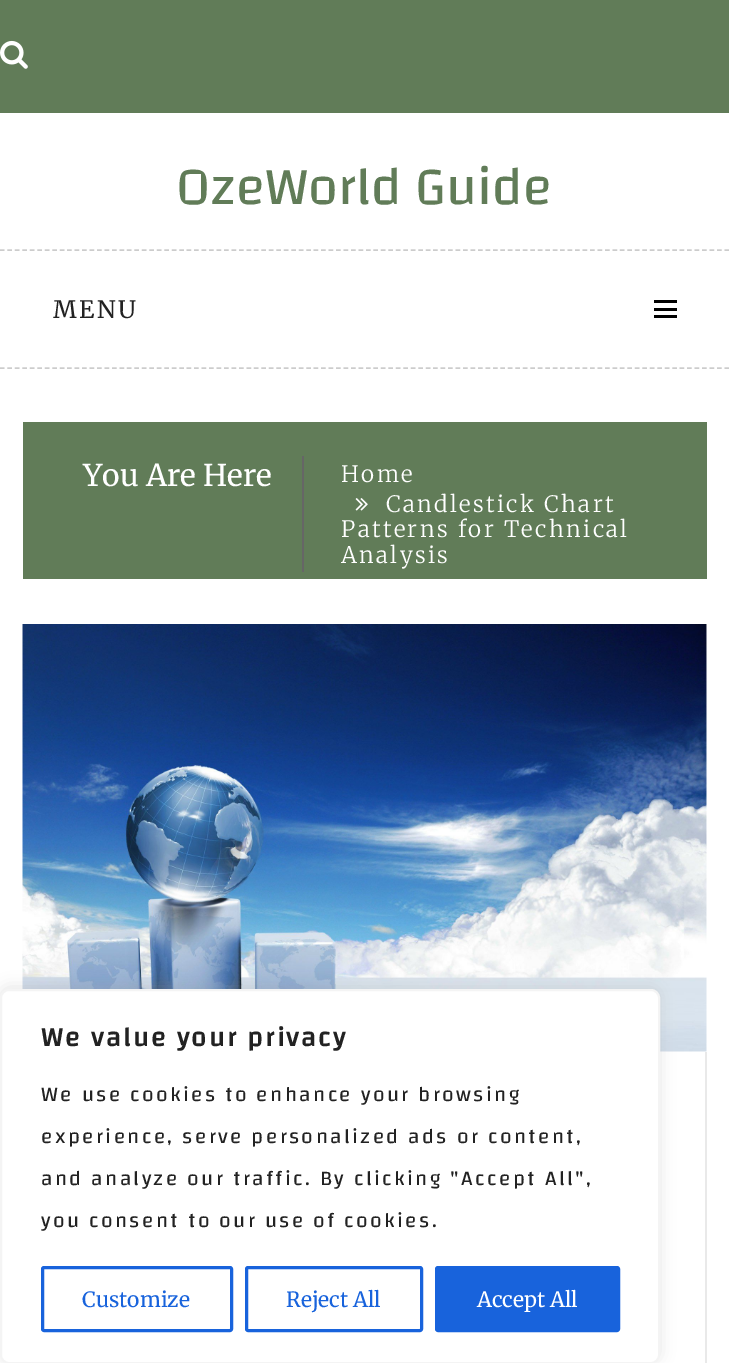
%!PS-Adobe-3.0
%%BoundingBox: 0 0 729 1363
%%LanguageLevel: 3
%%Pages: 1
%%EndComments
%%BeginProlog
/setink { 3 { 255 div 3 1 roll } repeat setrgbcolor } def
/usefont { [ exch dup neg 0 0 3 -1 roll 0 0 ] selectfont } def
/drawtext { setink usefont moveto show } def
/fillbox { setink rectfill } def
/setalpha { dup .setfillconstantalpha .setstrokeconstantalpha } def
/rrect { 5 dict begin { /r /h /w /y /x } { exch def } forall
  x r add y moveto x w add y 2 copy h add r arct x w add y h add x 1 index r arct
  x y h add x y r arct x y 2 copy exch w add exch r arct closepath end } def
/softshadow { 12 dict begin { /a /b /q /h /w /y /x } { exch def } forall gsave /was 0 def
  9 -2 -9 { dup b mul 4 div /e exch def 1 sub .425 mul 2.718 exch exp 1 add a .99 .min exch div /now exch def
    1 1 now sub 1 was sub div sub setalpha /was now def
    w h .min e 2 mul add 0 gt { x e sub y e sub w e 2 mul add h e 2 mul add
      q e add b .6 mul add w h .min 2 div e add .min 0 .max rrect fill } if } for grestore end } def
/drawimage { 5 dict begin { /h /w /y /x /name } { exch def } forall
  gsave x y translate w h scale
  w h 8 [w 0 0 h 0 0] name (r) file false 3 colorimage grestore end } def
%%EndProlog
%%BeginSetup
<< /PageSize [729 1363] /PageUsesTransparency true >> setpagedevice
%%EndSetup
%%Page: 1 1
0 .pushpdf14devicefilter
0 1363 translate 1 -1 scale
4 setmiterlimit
0 0 729 1363 255 255 255 fillbox
0 0 729 113 97 124 88 fillbox
(assets/img1.rgb) 0 40 28 29 drawimage
(OzeWorld Guide) 176 204 /Changa-Regular 54 97 124 88 drawtext
204 204 204 setink
1.5 setlinewidth
[4.5 2.97] 0 setdash
0 250 moveto 729 250 lineto stroke
0 368 moveto 729 368 lineto stroke
/Merriweather-Regular 24 usefont
34 34 34 setink
53 318 moveto 2.4 0 (MENU) ashow
654 300 23 3 0 0 0 fillbox
654 315 23 3 0 0 0 fillbox
654 308 23 3 0 0 0 fillbox
23 422 684 157 97 124 88 fillbox
(You Are Here) 83 486 /Merriweather-Regular 30 255 255 255 drawtext
302 456 2 116 102 102 102 fillbox
/Merriweather-Light 22.5 usefont
255 255 255 setink
341 482 moveto 2.4 0 (Home) ashow
(assets/img2.rgb) 355 498 13 13 drawimage
386 512 moveto 2.4 0 (Candlestick Chart) ashow
341 537 moveto 2.4 0 (Patterns for Technical) ashow
341 563 moveto 2.4 0 (Analysis) ashow
(assets/img3.rgb) 22 624 685 428 drawimage
705 1052 2 311 233 233 233 fillbox
172 171 171 setink
0 987 660 375 9 7.5 0.3 softshadow
255 255 255 setink
1 990 658 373 8 rrect gsave fill grestore
244 244 244 setink
2 setlinewidth
[] 0 setdash
stroke
/Changa-Bold 27 usefont
34 34 34 setink
41 1046 moveto 2.4 0 (We value your privacy) ashow
/Changa-Regular 21 usefont
41 1101 moveto 2.4 0 (We use cookies to enhance your browsing) ashow
41 1143 moveto 2.4 0 (experience, serve personalized ads or content,) ashow
41 1185 moveto 2.4 0 (and analyze our traffic. By clicking "Accept All",) ashow
41 1227 moveto 2.4 0 (you consent to our use of cookies.) ashow
24 99 220 setink
3 setlinewidth
42.5 1267.5 189 63 1.5 rrect stroke
(Customize) 82 1307 /Merriweather-Regular 21 24 99 220 drawtext
246.5 1267.5 175 63 1.5 rrect stroke
(Reject All) 286 1307 /Merriweather-Regular 21 24 99 220 drawtext
436.5 1267.5 182 63 1.5 rrect gsave fill grestore
stroke
(Accept All) 477 1307 /Merriweather-Regular 21 255 255 255 drawtext
.poppdf14devicefilter showpage
%%EOF
